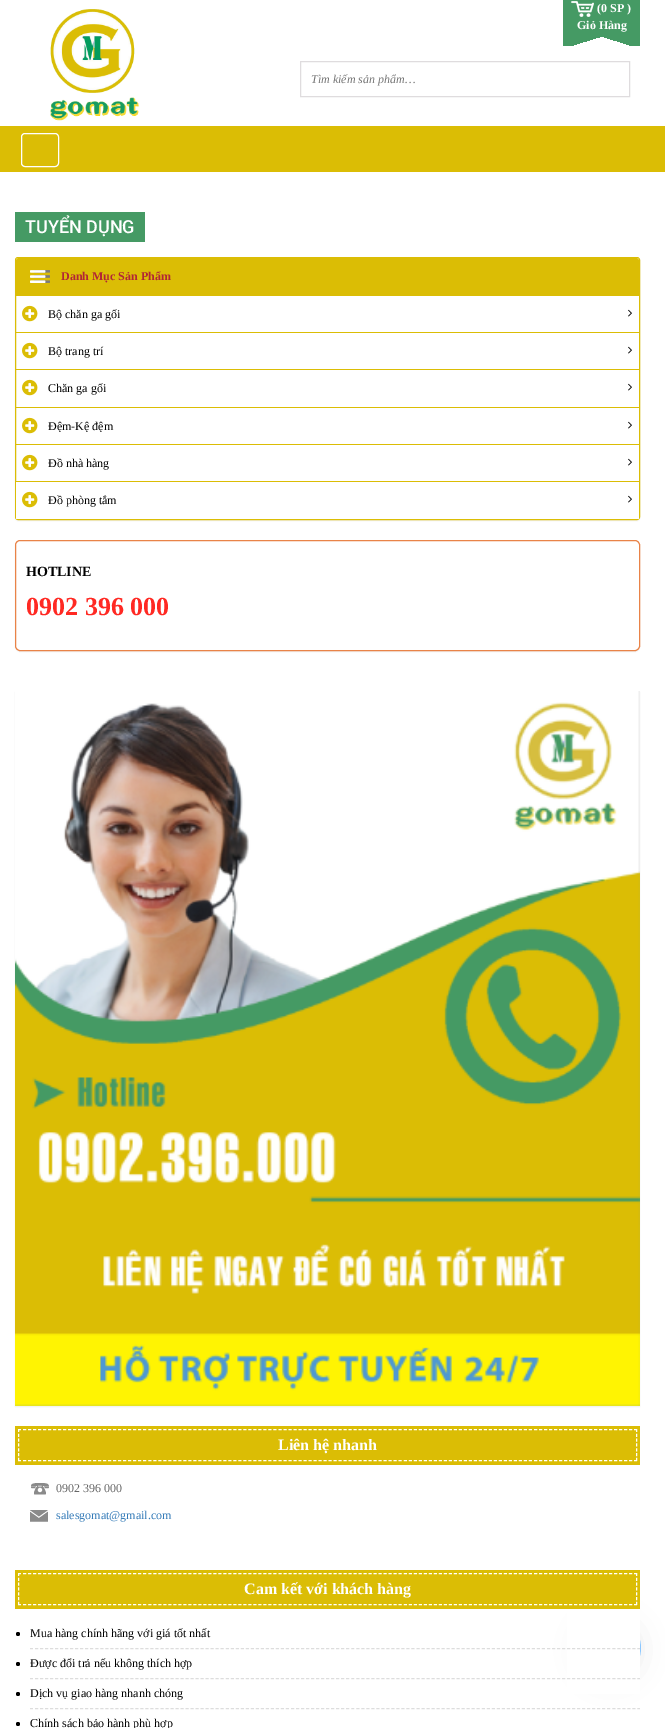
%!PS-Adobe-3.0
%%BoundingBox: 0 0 665 1728
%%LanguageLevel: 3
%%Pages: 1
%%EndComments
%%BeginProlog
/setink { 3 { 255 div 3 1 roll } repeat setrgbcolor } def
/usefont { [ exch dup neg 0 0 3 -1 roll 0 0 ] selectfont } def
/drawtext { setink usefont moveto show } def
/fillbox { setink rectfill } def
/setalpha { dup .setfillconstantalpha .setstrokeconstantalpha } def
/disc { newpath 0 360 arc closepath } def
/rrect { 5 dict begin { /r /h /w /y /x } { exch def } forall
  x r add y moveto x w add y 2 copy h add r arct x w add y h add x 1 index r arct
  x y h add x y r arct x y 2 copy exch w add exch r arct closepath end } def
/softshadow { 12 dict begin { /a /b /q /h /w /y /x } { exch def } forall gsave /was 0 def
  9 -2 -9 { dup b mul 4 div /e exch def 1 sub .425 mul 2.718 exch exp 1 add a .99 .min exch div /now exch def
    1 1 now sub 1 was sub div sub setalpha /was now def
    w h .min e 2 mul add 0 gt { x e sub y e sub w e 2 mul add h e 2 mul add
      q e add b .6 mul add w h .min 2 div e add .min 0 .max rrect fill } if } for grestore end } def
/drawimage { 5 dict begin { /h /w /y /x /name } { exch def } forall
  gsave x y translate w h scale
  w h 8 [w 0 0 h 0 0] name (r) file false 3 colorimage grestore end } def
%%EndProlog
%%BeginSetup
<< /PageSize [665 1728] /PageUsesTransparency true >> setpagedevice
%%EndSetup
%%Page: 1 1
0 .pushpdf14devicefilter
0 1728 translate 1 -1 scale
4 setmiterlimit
0 0 665 1728 255 255 255 fillbox
(assets/img1.rgb) 50 9 89 112 drawimage
(assets/img2.rgb) 563 0 77 46 drawimage
(assets/img3.rgb) 571 1 23 16 drawimage
(\(0 SP \)) 597 12 /LiberationSerif-Bold 12 255 255 255 drawtext
(Giỏ Hàng) 577 29 /LiberationSerif-Bold 12 255 255 255 drawtext
223 220 222 setink
300.5 61.5 329 35 rectstroke
(Tìm kiếm sản phẩm…) 311 83 /LiberationSerif-Italic 12 117 117 117 drawtext
0 126 665 46 219 189 5 fillbox
255 255 255 setink
21.5 133.5 37 33 3.5 rrect stroke
15 212 130 30 69 154 100 fillbox
(TUYỂN DỤNG) 25 233 /Roboto-Medium 18 255 255 255 drawtext
0 0 0 setink
15 258 625 263 3 0.5 0.05 softshadow
255 255 255 setink
15.5 257.5 624 262 2.5 rrect gsave fill grestore
219 189 5 setink
stroke
19 258 moveto 636 258 lineto 637.5 258 639 259.5 639 261 curveto 639 296 lineto 16 296 lineto 16 261 lineto 16 259.5 17.5 258 19 258 curveto closepath fill
(assets/img4.rgb) 34 270 16 13 drawimage
(assets/img5.rgb) 30 270 16 13 drawimage
(Danh Mục Sản Phẩm) 61 280 /LiberationSerif-Bold 12 177 38 54 drawtext
16 516 623 3 251 251 251 fillbox
16 332 623 1 219 189 5 fillbox
(assets/img6.rgb) 22 305 16 17 drawimage
(Bộ chăn ga gối) 48 318 /LiberationSerif-Regular 12 0 0 0 drawtext
(assets/img7.rgb) 628 309 4 8 drawimage
16 369 623 1 219 189 5 fillbox
(assets/img6.rgb) 22 342 16 17 drawimage
(Bộ trang trí) 48 355 /LiberationSerif-Regular 12 0 0 0 drawtext
(assets/img7.rgb) 628 346 4 8 drawimage
16 407 623 1 219 189 5 fillbox
(assets/img6.rgb) 22 379 16 17 drawimage
(Chăn ga gối) 48 392 /LiberationSerif-Regular 12 0 0 0 drawtext
(assets/img7.rgb) 628 383 4 8 drawimage
16 444 623 1 219 189 5 fillbox
(assets/img6.rgb) 22 417 16 17 drawimage
(Đệm-Kệ đệm) 48 430 /LiberationSerif-Regular 12 0 0 0 drawtext
(assets/img7.rgb) 628 421 4 8 drawimage
(assets/img6.rgb) 22 454 16 17 drawimage
(Đồ nhà hàng) 48 467 /LiberationSerif-Regular 12 0 0 0 drawtext
(assets/img7.rgb) 628 458 4 8 drawimage
255 255 255 setink
16 481 moveto 639 481 lineto 639 516 lineto 639 517.5 637.5 519 636 519 curveto 19 519 lineto 17.5 519 16 517.5 16 516 curveto closepath fill
16 481 623 1 219 189 5 fillbox
(assets/img6.rgb) 22 491 16 17 drawimage
(Đồ phòng tắm) 48 504 /LiberationSerif-Regular 12 0 0 0 drawtext
(assets/img7.rgb) 628 495 4 8 drawimage
15 541 625 111 5 0.5 0.05 softshadow
255 255 255 setink
15.5 540.5 624 110 4.5 rrect gsave fill grestore
233 131 72 setink
stroke
(HOTLINE) 26 576 /LiberationSerif-Bold 14 0 0 0 drawtext
(0902 396 000) 26 615 /LiberationSerif-Bold 26 255 41 35 drawtext
0 0 0 setink
15 692 625 715 0 0.5 0.05 softshadow
(assets/img8.rgb) 15 691 625 715 drawimage
15 1426 625 39 219 189 5 fillbox
255 255 255 setink
[3 2.01] 0 setdash
18 1429.5 moveto 637 1429.5 lineto stroke
[3 1.83] 0 setdash
636.5 1429 moveto 636.5 1461 lineto stroke
[3 2.01] 0 setdash
18 1460.5 moveto 637 1460.5 lineto stroke
[3 1.83] 0 setdash
18.5 1429 moveto 18.5 1461 lineto stroke
(Liên hệ nhanh) 278 1450 /LiberationSerif-Bold 16 255 255 255 drawtext
(assets/img9.rgb) 31 1483 18 12 drawimage
(0902 396 000) 56 1492 /LiberationSerif-Regular 12 102 102 102 drawtext
(assets/img10.rgb) 30 1510 18 12 drawimage
(salesgomat@gmail.com) 56 1519 /LiberationSerif-Regular 12 51 122 183 drawtext
139 139 139 setink
581 1620 60 60 30 16 0.16 softshadow
139 199 255 setink
611 1648 30 disc fill
567 1609 73 85 255 255 255 fillbox
15 1570 625 39 219 189 5 fillbox
255 255 255 setink
[3 2.01] 0 setdash
18 1573.5 moveto 637 1573.5 lineto stroke
[3 1.83] 0 setdash
636.5 1573 moveto 636.5 1605 lineto stroke
[3 2.01] 0 setdash
18 1604.5 moveto 637 1604.5 lineto stroke
[3 1.83] 0 setdash
18.5 1573 moveto 18.5 1605 lineto stroke
(Cam kết với khách hàng) 244 1594 /LiberationSerif-Bold 16 255 255 255 drawtext
221 221 221 setink
[3 2.02] 0 setdash
30 1648.5 moveto 640 1648.5 lineto stroke
0 0 0 setink
18 1634 2 disc fill
(Mua hàng chính hãng với giá tốt nhất) 30 1637 /LiberationSerif-Regular 12 0 0 0 drawtext
221 221 221 setink
30 1678.5 moveto 640 1678.5 lineto stroke
0 0 0 setink
18 1664 2 disc fill
(Được đổi trả nếu không thích hợp) 30 1667 /LiberationSerif-Regular 12 0 0 0 drawtext
221 221 221 setink
30 1708.5 moveto 640 1708.5 lineto stroke
0 0 0 setink
18 1694 2 disc fill
(Dịch vụ giao hàng nhanh chóng) 30 1697 /LiberationSerif-Regular 12 0 0 0 drawtext
18 1724 2 disc fill
(Chính sách bảo hành phù hợp) 30 1727 /LiberationSerif-Regular 12 0 0 0 drawtext
.poppdf14devicefilter showpage
%%EOF
